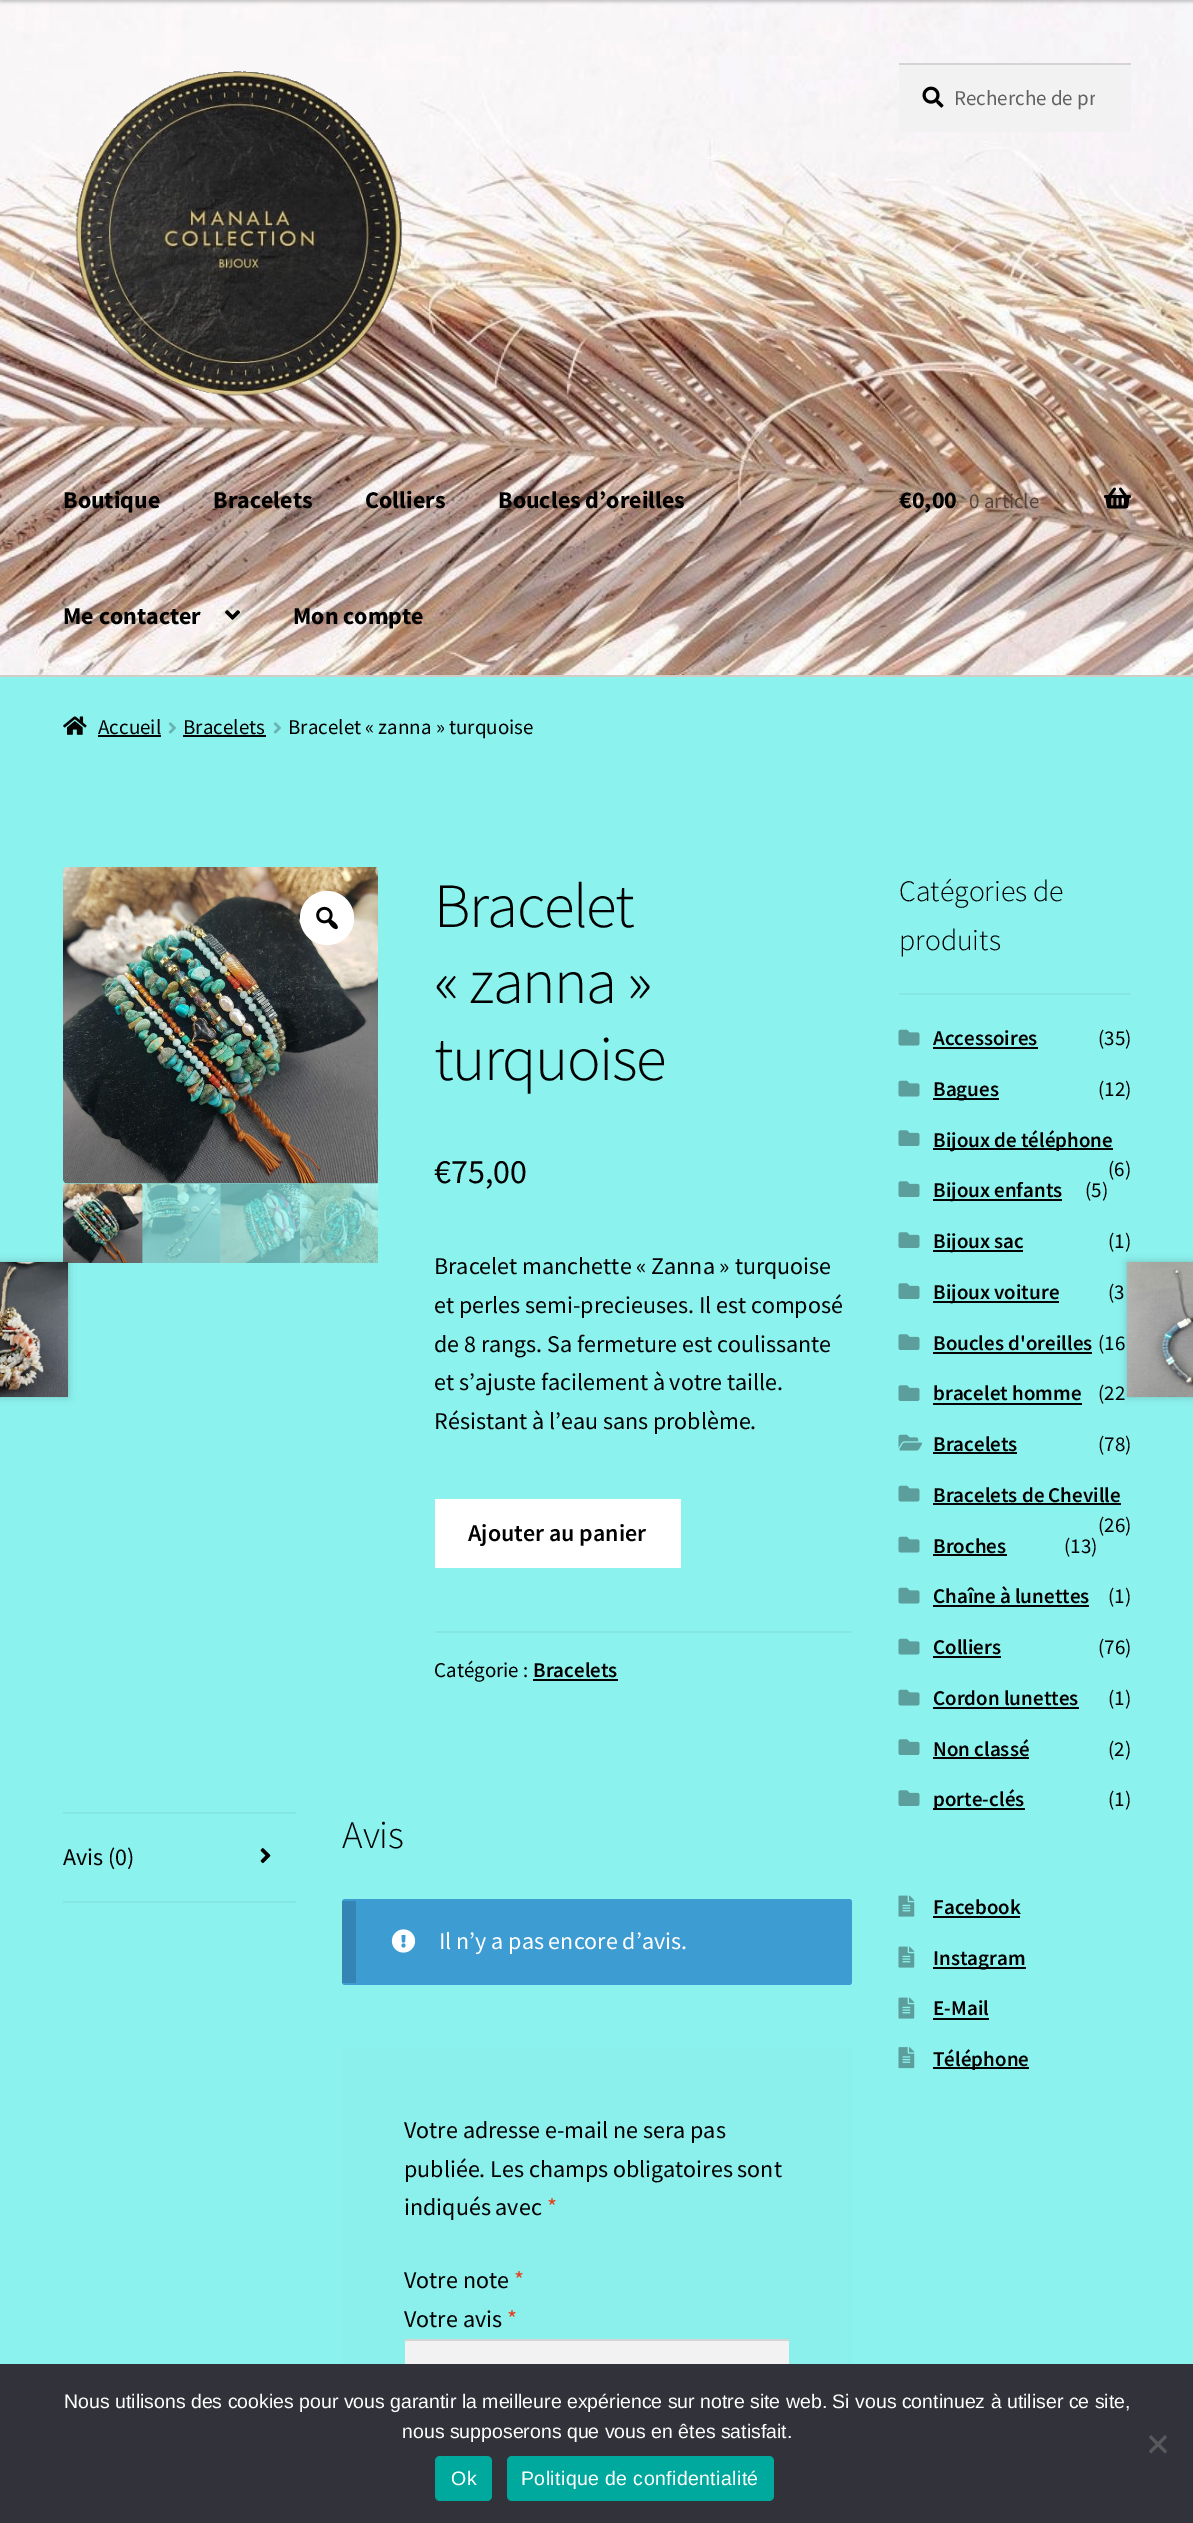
%!PS-Adobe-3.0
%%BoundingBox: 0 0 1193 2523
%%LanguageLevel: 3
%%Pages: 1
%%EndComments
%%BeginProlog
/setink { 3 { 255 div 3 1 roll } repeat setrgbcolor } def
/usefont { [ exch dup neg 0 0 3 -1 roll 0 0 ] selectfont } def
/drawtext { setink usefont moveto show } def
/fillbox { setink rectfill } def
/setalpha { dup .setfillconstantalpha .setstrokeconstantalpha } def
/disc { newpath 0 360 arc closepath } def
/rrect { 5 dict begin { /r /h /w /y /x } { exch def } forall
  x r add y moveto x w add y 2 copy h add r arct x w add y h add x 1 index r arct
  x y h add x y r arct x y 2 copy exch w add exch r arct closepath end } def
/softshadow { 12 dict begin { /a /b /q /h /w /y /x } { exch def } forall gsave /was 0 def
  9 -2 -9 { dup b mul 4 div /e exch def 1 sub .425 mul 2.718 exch exp 1 add a .99 .min exch div /now exch def
    1 1 now sub 1 was sub div sub setalpha /was now def
    w h .min e 2 mul add 0 gt { x e sub y e sub w e 2 mul add h e 2 mul add
      q e add b .6 mul add w h .min 2 div e add .min 0 .max rrect fill } if } for grestore end } def
/drawimage { 5 dict begin { /h /w /y /x /name } { exch def } forall
  gsave x y translate w h scale
  w h 8 [w 0 0 h 0 0] name (r) file false 3 colorimage grestore end } def
%%EndProlog
%%BeginSetup
<< /PageSize [1193 2523] /PageUsesTransparency true >> setpagedevice
%%EndSetup
%%Page: 1 1
0 .pushpdf14devicefilter
0 2523 translate 1 -1 scale
4 setmiterlimit
0 0 1193 2523 140 242 238 fillbox
(assets/img1.rgb) 0 0 1193 675 drawimage
0 0 0 setink
0 -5 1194 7 0 1.5 0.2 softshadow
0 675 1193 2 209 204 198 fillbox
(assets/img2.rgb) 75 71 327 325 drawimage
899 65 232 67 242 242 242 fillbox
(assets/img3.rgb) 922 86 22 22 drawimage
899 63 232 2 212 212 212 fillbox
gsave
954 84 141 27 rectclip
(Recherche de pr) 954 105 /SourceSansPro-Regular 21 97 97 97 drawtext
grestore
(Boutique) 63 508 /SourceSansPro-Bold 24 0 0 0 drawtext
(Bracelets) 213 508 /SourceSansPro-Bold 24 0 0 0 drawtext
(Colliers) 365 508 /SourceSansPro-Bold 24 0 0 0 drawtext
(Boucles d’oreilles) 498 508 /SourceSansPro-Bold 24 0 0 0 drawtext
(Me contacter) 63 624 /SourceSansPro-Bold 24 0 0 0 drawtext
(assets/img4.rgb) 225 610 15 10 drawimage
(Mon compte) 293 624 /SourceSansPro-Bold 24 0 0 0 drawtext
(€0,00) 899 508 /SourceSansPro-Bold 24 0 0 0 drawtext
(0 article) 969 508 /SourceSansPro-Regular 21 87 71 63 drawtext
(assets/img5.rgb) 1104 487 27 22 drawimage
(assets/img6.rgb) 63 716 24 19 drawimage
(Accueil) 98 734 /SourceSansPro-Regular 21 0 0 0 drawtext
98 735 63 2 5 5 5 fillbox
(assets/img7.rgb) 168 722 8 12 drawimage
(Bracelets) 183 734 /SourceSansPro-Regular 21 0 0 0 drawtext
183 735 83 2 5 5 5 fillbox
(assets/img7.rgb) 273 722 8 12 drawimage
(Bracelet « zanna » turquoise) 288 734 /SourceSansPro-Regular 21 0 0 0 drawtext
(assets/img8.rgb) 63 867 315 317 drawimage
255 255 255 setink
327 918 27 disc fill
(assets/img9.rgb) 316 906 22 24 drawimage
(assets/img10.rgb) 63 1183 80 80 drawimage
(assets/img11.rgb) 142 1183 79 80 drawimage
(assets/img12.rgb) 220 1183 80 80 drawimage
(assets/img13.rgb) 300 1183 78 80 drawimage
/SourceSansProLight-Light 63 usefont
0 0 0 setink
434 927 moveto -1.5 0 (Bracelet) ashow
434 1003 moveto -1.5 0 (« zanna ») ashow
434 1080 moveto -1.5 0 (turquoise) ashow
(€75,00) 434 1183 /SourceSansPro-Regular 34 0 0 0 drawtext
(Bracelet manchette « Zanna » turquoise) 434 1274 /SourceSansPro-Regular 24 0 0 0 drawtext
(et perles semi-precieuses. Il est composé) 434 1313 /SourceSansPro-Regular 24 0 0 0 drawtext
(de 8 rangs. Sa fermeture est coulissante) 434 1352 /SourceSansPro-Regular 24 0 0 0 drawtext
(et s’ajuste facilement à votre taille.) 434 1390 /SourceSansPro-Regular 24 0 0 0 drawtext
(Résistant à l’eau sans problème.) 434 1429 /SourceSansPro-Regular 24 0 0 0 drawtext
435 1499 246 69 255 255 255 fillbox
(Ajouter au panier) 468 1541 /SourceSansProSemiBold-SemiBold 24 0 0 0 drawtext
435 1631 417 2 133 230 226 fillbox
(Catégorie :) 434 1677 /SourceSansPro-Regular 21 0 0 0 drawtext
(Bracelets) 533 1677 /SourceSansProSemiBold-SemiBold 21 0 0 0 drawtext
533 1679 85 2 5 5 5 fillbox
0 0 0 setink
-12 1262 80 135 0 4 0.2 softshadow
(assets/img14.rgb) 0 1262 68 135 drawimage
1127 1262 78 135 0 4 0.2 softshadow
(assets/img15.rgb) 1127 1262 66 135 drawimage
63 1812 233 2 133 230 226 fillbox
63 1901 233 2 133 230 226 fillbox
(Avis \(0\)) 63 1865 /SourceSansPro-Regular 24 0 0 0 drawtext
(assets/img16.rgb) 260 1848 11 16 drawimage
(Avis) 342 1848 /SourceSansProLight-Light 39 0 0 0 drawtext
61 156 210 setink
342 1899 510 86 3 rrect fill
0.15 setalpha
342 1901 14 82 0 0 0 fillbox
1 setalpha
(assets/img17.rgb) 391 1929 25 24 drawimage
(Il n’y a pas encore d’avis.) 439 1949 /SourceSansPro-Regular 24 255 255 255 drawtext
342 2048 510 316 139 239 236 fillbox
(Votre adresse e-mail ne sera pas) 404 2138 /SourceSansPro-Regular 24 0 0 0 drawtext
(publiée. Les champs obligatoires sont) 404 2177 /SourceSansPro-Regular 24 0 0 0 drawtext
(indiqués avec) 404 2215 /SourceSansPro-Regular 24 0 0 0 drawtext
(*) 547 2215 /SourceSansPro-Regular 24 226 64 28 drawtext
(Votre note) 404 2288 /SourceSansPro-Regular 24 0 0 0 drawtext
(*) 514 2288 /SourceSansPro-Regular 24 226 64 28 drawtext
(Votre avis) 404 2327 /SourceSansPro-Regular 24 0 0 0 drawtext
(*) 507 2327 /SourceSansPro-Regular 24 226 64 28 drawtext
405 2341 384 23 242 242 242 fillbox
405 2339 384 2 212 212 212 fillbox
899 993 232 2 133 230 226 fillbox
(Catégories de) 899 901 /SourceSansProLight-Light 29.75 0 0 0 drawtext
(produits) 899 950 /SourceSansProLight-Light 29.75 0 0 0 drawtext
(assets/img18.rgb) 898 1029 22 17 drawimage
(Accessoires) 933 1045 /SourceSansProSemiBold-SemiBold 21 0 0 0 drawtext
933 1047 105 2 5 5 5 fillbox
(\(35\)) 1098 1045 /SourceSansPro-Regular 21 0 0 0 drawtext
(assets/img18.rgb) 898 1080 22 17 drawimage
933 1098 66 2 5 5 5 fillbox
(Bagues) 933 1096 /SourceSansProSemiBold-SemiBold 21 0 0 0 drawtext
(\(12\)) 1098 1096 /SourceSansPro-Regular 21 0 0 0 drawtext
(assets/img19.rgb) 898 1130 22 16 drawimage
933 1148 180 2 5 5 5 fillbox
(Bijoux de téléphone) 933 1147 /SourceSansProSemiBold-SemiBold 21 0 0 0 drawtext
(\(6\)) 1108 1176 /SourceSansPro-Regular 21 0 0 0 drawtext
(assets/img19.rgb) 898 1181 22 16 drawimage
933 1199 129 2 5 5 5 fillbox
(Bijoux enfants) 933 1197 /SourceSansProSemiBold-SemiBold 21 0 0 0 drawtext
(\(5\)) 1085 1197 /SourceSansPro-Regular 21 0 0 0 drawtext
(assets/img19.rgb) 898 1232 22 16 drawimage
933 1250 90 2 5 5 5 fillbox
(Bijoux sac) 933 1248 /SourceSansProSemiBold-SemiBold 21 0 0 0 drawtext
(\(1\)) 1108 1248 /SourceSansPro-Regular 21 0 0 0 drawtext
(assets/img19.rgb) 898 1283 22 16 drawimage
933 1301 126 2 5 5 5 fillbox
(Bijoux voiture) 933 1299 /SourceSansProSemiBold-SemiBold 21 0 0 0 drawtext
(\(3) 1108 1299 /SourceSansPro-Regular 21 0 0 0 drawtext
(assets/img19.rgb) 898 1334 22 16 drawimage
(Boucles d'oreilles) 933 1350 /SourceSansProSemiBold-SemiBold 21 0 0 0 drawtext
933 1352 159 2 5 5 5 fillbox
(\(16) 1098 1350 /SourceSansPro-Regular 21 0 0 0 drawtext
(assets/img19.rgb) 898 1385 22 16 drawimage
(bracelet homme) 933 1400 /SourceSansProSemiBold-SemiBold 21 0 0 0 drawtext
933 1403 149 2 5 5 5 fillbox
(\(22) 1098 1400 /SourceSansPro-Regular 21 0 0 0 drawtext
(assets/img20.rgb) 898 1434 25 17 drawimage
(Bracelets) 933 1451 /SourceSansProSemiBold-SemiBold 21 0 0 0 drawtext
933 1452 84 2 5 5 5 fillbox
(\(78\)) 1098 1451 /SourceSansPro-Regular 21 0 0 0 drawtext
(assets/img18.rgb) 898 1485 22 17 drawimage
(Bracelets de Cheville) 933 1502 /SourceSansProSemiBold-SemiBold 21 0 0 0 drawtext
933 1503 188 2 5 5 5 fillbox
(\(26\)) 1098 1532 /SourceSansPro-Regular 21 0 0 0 drawtext
(assets/img18.rgb) 898 1536 22 17 drawimage
(Broches) 933 1553 /SourceSansProSemiBold-SemiBold 21 0 0 0 drawtext
933 1554 74 2 5 5 5 fillbox
(\(13\)) 1064 1553 /SourceSansPro-Regular 21 0 0 0 drawtext
(assets/img18.rgb) 898 1587 22 17 drawimage
(Chaîne à lunettes) 933 1603 /SourceSansProSemiBold-SemiBold 21 0 0 0 drawtext
933 1605 156 2 5 5 5 fillbox
(\(1\)) 1108 1603 /SourceSansPro-Regular 21 0 0 0 drawtext
(assets/img18.rgb) 898 1638 22 17 drawimage
(Colliers) 933 1654 /SourceSansProSemiBold-SemiBold 21 0 0 0 drawtext
933 1656 68 2 5 5 5 fillbox
(\(76\)) 1098 1654 /SourceSansPro-Regular 21 0 0 0 drawtext
(assets/img18.rgb) 898 1689 22 17 drawimage
(Cordon lunettes) 933 1705 /SourceSansProSemiBold-SemiBold 21 0 0 0 drawtext
933 1707 146 2 5 5 5 fillbox
(\(1\)) 1108 1705 /SourceSansPro-Regular 21 0 0 0 drawtext
(assets/img19.rgb) 898 1739 22 16 drawimage
(Non classé) 933 1756 /SourceSansProSemiBold-SemiBold 21 0 0 0 drawtext
933 1757 96 2 5 5 5 fillbox
(\(2\)) 1108 1756 /SourceSansPro-Regular 21 0 0 0 drawtext
(assets/img19.rgb) 898 1790 22 16 drawimage
933 1808 92 2 5 5 5 fillbox
(porte-clés) 933 1806 /SourceSansProSemiBold-SemiBold 21 0 0 0 drawtext
(\(1\)) 1108 1806 /SourceSansPro-Regular 21 0 0 0 drawtext
(assets/img21.rgb) 898 1895 17 22 drawimage
(Facebook) 933 1914 /SourceSansProSemiBold-SemiBold 21 0 0 0 drawtext
933 1916 87 2 5 5 5 fillbox
(assets/img21.rgb) 898 1946 17 22 drawimage
933 1967 93 2 5 5 5 fillbox
(Instagram) 933 1965 /SourceSansProSemiBold-SemiBold 21 0 0 0 drawtext
(assets/img21.rgb) 898 1997 17 22 drawimage
(E-Mail) 933 2015 /SourceSansProSemiBold-SemiBold 21 0 0 0 drawtext
933 2018 56 2 5 5 5 fillbox
(assets/img22.rgb) 898 2047 17 22 drawimage
933 2067 96 2 5 5 5 fillbox
(Téléphone) 933 2066 /SourceSansProSemiBold-SemiBold 21 0 0 0 drawtext
0 2364 1193 159 50 50 58 fillbox
(Nous utilisons des cookies pour vous garantir la meilleure expérience sur notre site web. Si vous continuez à utiliser ce site,) 64 2408 /LiberationSans-Regular 19.5 255 255 255 drawtext
(nous supposerons que vous en êtes satisfait.) 402 2438 /LiberationSans-Regular 19.5 255 255 255 drawtext
89 89 93 setink
1165 2435 moveto 1167 2437.5 lineto 1151 2453.5 lineto 1149 2451 lineto closepath fill
1149 2437.5 moveto 1151 2435 lineto 1167 2451 lineto 1165 2453.5 lineto closepath fill
0 169 157 setink
435 2456 57 45 5 rrect fill
255 255 255 setink
451 2485 moveto 0.4 0 (Ok) ashow
0 169 157 setink
507 2456 267 45 5 rrect fill
255 255 255 setink
521 2485 moveto 0.4 0 (Politique de confidentialité) ashow
.poppdf14devicefilter showpage
%%EOF
